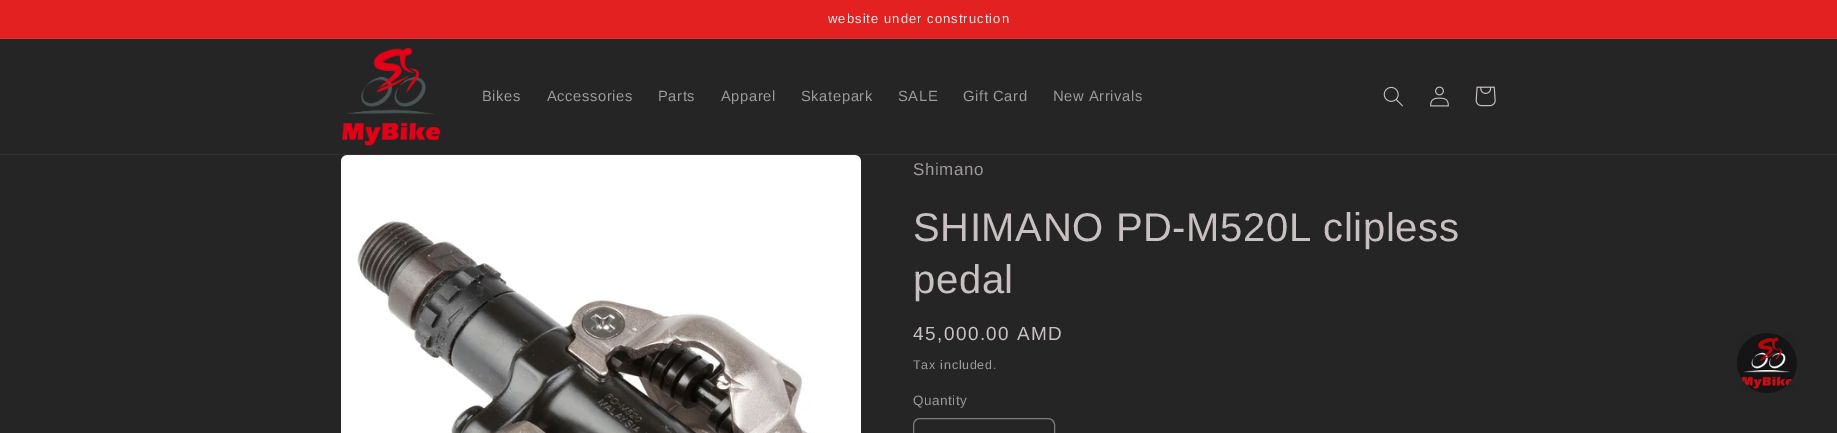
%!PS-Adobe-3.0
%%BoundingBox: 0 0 1837 433
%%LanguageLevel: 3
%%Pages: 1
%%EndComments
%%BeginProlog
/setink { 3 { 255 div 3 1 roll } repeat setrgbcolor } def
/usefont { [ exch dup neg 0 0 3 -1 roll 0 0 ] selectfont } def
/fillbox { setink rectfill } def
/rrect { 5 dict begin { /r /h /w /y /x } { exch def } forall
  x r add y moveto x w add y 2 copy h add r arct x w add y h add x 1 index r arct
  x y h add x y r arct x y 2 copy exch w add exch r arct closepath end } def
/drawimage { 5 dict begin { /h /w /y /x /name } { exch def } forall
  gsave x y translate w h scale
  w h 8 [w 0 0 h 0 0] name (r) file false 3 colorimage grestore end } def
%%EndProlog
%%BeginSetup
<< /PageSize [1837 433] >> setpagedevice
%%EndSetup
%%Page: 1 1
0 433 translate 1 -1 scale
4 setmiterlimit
0 0 1837 433 37 37 37 fillbox
0 0 1837 38 226 33 32 fillbox
0 38 1837 1 227 49 48 fillbox
/Arimo-Regular 13 usefont
239 236 236 setink
828 23 moveto 1.05 0 (website under construction) ashow
0 154 1837 1 50 49 49 fillbox
(assets/img1.rgb) 341 47 100 99 drawimage
/Arimo-Regular 14.75 usefont
160 154 154 setink
482 101 moveto 0.6 0 (Bikes) ashow
547 101 moveto 0.6 0 (Accessories) ashow
658 101 moveto 0.6 0 (Parts) ashow
721 101 moveto 0.6 0 (Apparel) ashow
801 101 moveto 0.6 0 (Skatepark) ashow
898 101 moveto 0.6 0 (SALE) ashow
963 101 moveto 0.6 0 (Gift Card) ashow
1053 101 moveto 0.6 0 (New Arrivals) ashow
(assets/img2.rgb) 1383 86 20 21 drawimage
(assets/img3.rgb) 1430 86 19 21 drawimage
(assets/img4.rgb) 1475 86 21 21 drawimage
(assets/img5.rgb) 341 155 520 278 drawimage
/Arimo-Regular 17 usefont
913 175 moveto 0.6 0 (Shimano) ashow
/Arimo-Regular 40 usefont
201 193 193 setink
913 241 moveto 0.6 0 (SHIMANO PD-M520L clipless) ashow
913 293 moveto 0.6 0 (pedal) ashow
/Arimo-Regular 19 usefont
913 340 moveto 1.4 0 (45,000.00 AMD) ashow
/Arimo-Regular 12.5 usefont
160 154 154 setink
913 369 moveto 0.75 0 (Tax included.) ashow
/Arimo-Regular 13.5 usefont
913 405 moveto 0.5 0 (Quantity) ashow
127 123 123 setink
913.5 418.5 141 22 6.5 rrect stroke
(assets/img6.rgb) 1737 333 60 60 drawimage
showpage
%%EOF
